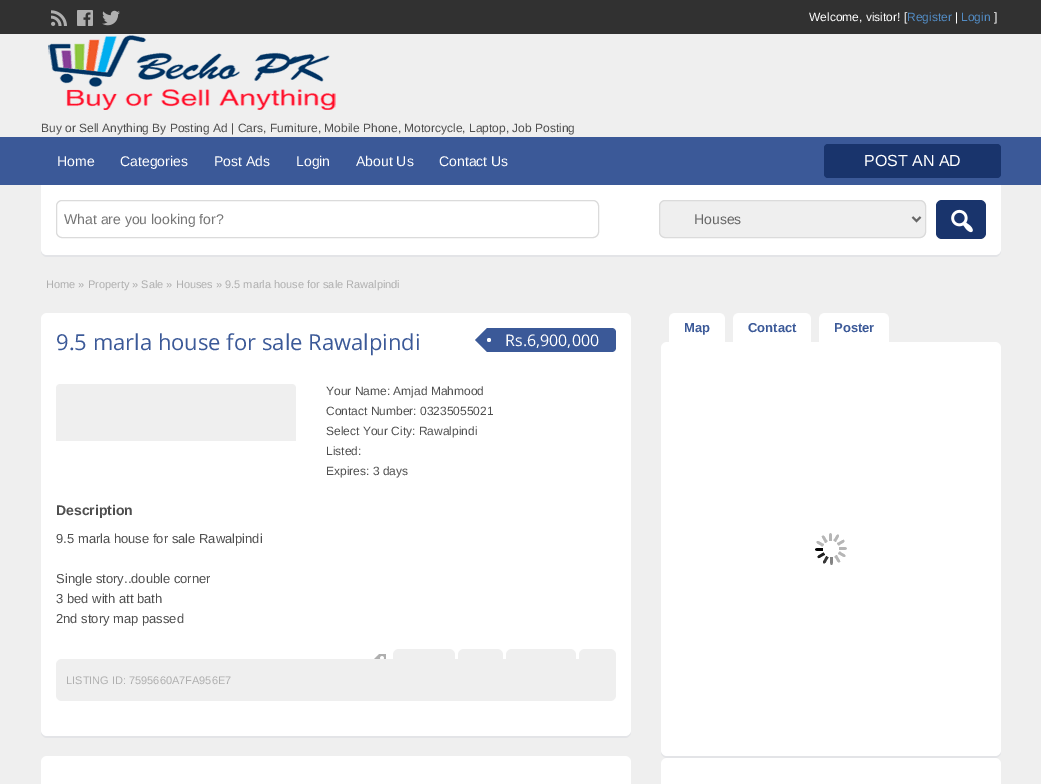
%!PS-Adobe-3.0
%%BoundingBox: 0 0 1041 784
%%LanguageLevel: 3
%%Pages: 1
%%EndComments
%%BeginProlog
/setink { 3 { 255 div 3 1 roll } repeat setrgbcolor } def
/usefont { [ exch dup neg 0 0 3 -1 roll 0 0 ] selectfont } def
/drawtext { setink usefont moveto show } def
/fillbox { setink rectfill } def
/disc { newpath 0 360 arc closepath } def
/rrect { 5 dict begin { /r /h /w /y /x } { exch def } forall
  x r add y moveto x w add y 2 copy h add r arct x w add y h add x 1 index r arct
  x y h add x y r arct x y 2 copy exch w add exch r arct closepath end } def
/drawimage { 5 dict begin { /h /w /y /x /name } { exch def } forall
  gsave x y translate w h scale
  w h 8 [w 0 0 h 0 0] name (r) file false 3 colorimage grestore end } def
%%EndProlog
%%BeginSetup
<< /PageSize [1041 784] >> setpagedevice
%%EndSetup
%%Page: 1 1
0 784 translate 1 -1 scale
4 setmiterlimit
0 0 1041 784 239 239 239 fillbox
0 0 1041 34 49 49 49 fillbox
(assets/img1.rgb) 51 10 16 16 drawimage
(assets/img2.rgb) 77 10 16 16 drawimage
(assets/img3.rgb) 102 10 18 16 drawimage
(Welcome, visitor! [) 809 21 /LiberationSans-Regular 12 255 255 255 drawtext
(Register) 907 21 /LiberationSans-Regular 12 82 139 195 drawtext
(|) 955 21 /LiberationSans-Regular 12 255 255 255 drawtext
(Login) 961 21 /LiberationSans-Regular 12 82 139 195 drawtext
(]) 994 21 /LiberationSans-Regular 12 255 255 255 drawtext
(assets/img4.rgb) 48 35 288 75 drawimage
(Buy or Sell Anything By Posting Ad | Cars, Furniture, Mobile Phone, Motorcycle, Laptop, Job Posting) 41 132 /LiberationSans-Regular 12 79 79 79 drawtext
0 137 1041 48 59 89 152 fillbox
(Home) 57 166 /LiberationSans-Regular 14 255 255 255 drawtext
(Categories) 120 166 /LiberationSans-Regular 14 255 255 255 drawtext
(Post Ads) 214 166 /LiberationSans-Regular 14 255 255 255 drawtext
(Login) 296 166 /LiberationSans-Regular 14 255 255 255 drawtext
(About Us) 356 166 /LiberationSans-Regular 14 255 255 255 drawtext
(Contact Us) 439 166 /LiberationSans-Regular 14 255 255 255 drawtext
25 52 108 setink
824 144 177 34 4 rrect fill
(POST AN AD) 864 166 /LiberationSans-Regular 16 255 255 255 drawtext
227 228 231 setink
41 249 moveto 41 251 lineto 41 254 44 257 47 257 curveto 995 257 lineto 998 257 1001 254 1001 251 curveto 1001 249 lineto 1001 252 998 255 995 255 curveto 47 255 lineto 44 255 41 252 41 249 curveto closepath fill
255 255 255 setink
41 185 moveto 1001 185 lineto 1001 249 lineto 1001 252.5 998.5 255 995 255 curveto 47 255 lineto 43.5 255 41 252.5 41 249 curveto closepath fill
219 219 219 setink
56.5 200.5 542 37 5.5 rrect stroke
(What are you looking for?) 64 224 /LiberationSans-Regular 14 117 117 117 drawtext
239 239 239 setink
659.5 200.5 266 37 5.5 rrect gsave fill grestore
219 219 219 setink
stroke
102 102 102 setink
2 setlinewidth
912.5 217 moveto 916.5 221 lineto 920.5 217 lineto stroke
(Houses) 694 224 /LiberationSans-Regular 14 102 102 102 drawtext
25 52 108 setink
936 200 50 39 6 rrect fill
(assets/img5.rgb) 951 209 22 24 drawimage
(Home » Property » Sale » Houses » 9.5 marla house for sale Rawalpindi) 46 288 /LiberationSans-Regular 11 175 175 175 drawtext
227 228 231 setink
661 750 moveto 661 752 lineto 661 755 664 758 667 758 curveto 995 758 lineto 998 758 1001 755 1001 752 curveto 1001 750 lineto 1001 753 998 756 995 756 curveto 667 756 lineto 664 756 661 753 661 750 curveto closepath fill
255 255 255 setink
661 342 340 414 6 rrect fill
675 313 moveto 719 313 lineto 722.5 313 725 315.5 725 319 curveto 725 343 lineto 669 343 lineto 669 319 lineto 669 315.5 671.5 313 675 313 curveto closepath fill
(Map) 684 332 /LiberationSans-Bold 13 59 89 152 drawtext
255 255 255 setink
739 313 moveto 805 313 lineto 808.5 313 811 315.5 811 319 curveto 811 343 lineto 733 343 lineto 733 319 lineto 733 315.5 735.5 313 739 313 curveto closepath fill
(Contact) 748 332 /LiberationSans-Bold 13 59 89 152 drawtext
255 255 255 setink
825 313 moveto 883 313 lineto 886.5 313 889 315.5 889 319 curveto 889 343 lineto 819 343 lineto 819 319 lineto 819 315.5 821.5 313 825 313 curveto closepath fill
(Poster) 834 332 /LiberationSans-Bold 13 59 89 152 drawtext
(assets/img6.rgb) 815 533 32 32 drawimage
255 255 255 setink
661 758 340 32 6 rrect fill
227 228 231 setink
41 730 moveto 41 732 lineto 41 735 44 738 47 738 curveto 625 738 lineto 628 738 631 735 631 732 curveto 631 730 lineto 631 733 628 736 625 736 curveto 47 736 lineto 44 736 41 733 41 730 curveto closepath fill
255 255 255 setink
41 313 590 423 6 rrect fill
(9.5 marla house for sale Rawalpindi) 56 350 /OpenSans-Regular 22 59 89 152 drawtext
487 328 moveto 612 328 lineto 614 328 616 330 616 332 curveto 616 348 lineto 616 350 614 352 612 352 curveto 487 352 lineto closepath fill
487 328 moveto 487 352 lineto 475 340 lineto closepath fill
255 255 255 setink
489 340 2 disc fill
(Rs.6,900,000) 505 346 /OpenSans-Regular 16 255 255 255 drawtext
239 239 239 setink
60 384 moveto 292 384 lineto 294 384 296 386 296 388 curveto 296 441 lineto 56 441 lineto 56 388 lineto 56 386 58 384 60 384 curveto closepath fill
(Your Name: Amjad Mahmood) 326 395 /LiberationSans-Regular 12 79 79 79 drawtext
(Contact Number: 03235055021) 326 415 /LiberationSans-Regular 12 79 79 79 drawtext
(Select Your City: Rawalpindi) 326 435 /LiberationSans-Regular 12 79 79 79 drawtext
(Listed:) 326 455 /LiberationSans-Regular 12 79 79 79 drawtext
(Expires: 3 days) 326 475 /LiberationSans-Regular 12 79 79 79 drawtext
(Description) 56 515 /LiberationSans-Bold 14 79 79 79 drawtext
(9.5 marla house for sale Rawalpindi) 56 543 /LiberationSans-Regular 13 79 79 79 drawtext
(Single story..double corner) 56 583 /LiberationSans-Regular 13 79 79 79 drawtext
(3 bed with att bath) 56 603 /LiberationSans-Regular 13 79 79 79 drawtext
(2nd story map passed) 56 623 /LiberationSans-Regular 13 79 79 79 drawtext
(assets/img7.rgb) 374 654 12 5 drawimage
239 239 239 setink
393 649 62 24 6 rrect fill
458 649 45 24 6 rrect fill
506 649 70 24 6 rrect fill
579 649 37 24 6 rrect fill
56 659 560 42 6 rrect fill
(LISTING ID: 7595660A7FA956E7) 66 684 /LiberationSans-Regular 11 175 175 175 drawtext
255 255 255 setink
41 756 590 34 6 rrect fill
showpage
%%EOF
